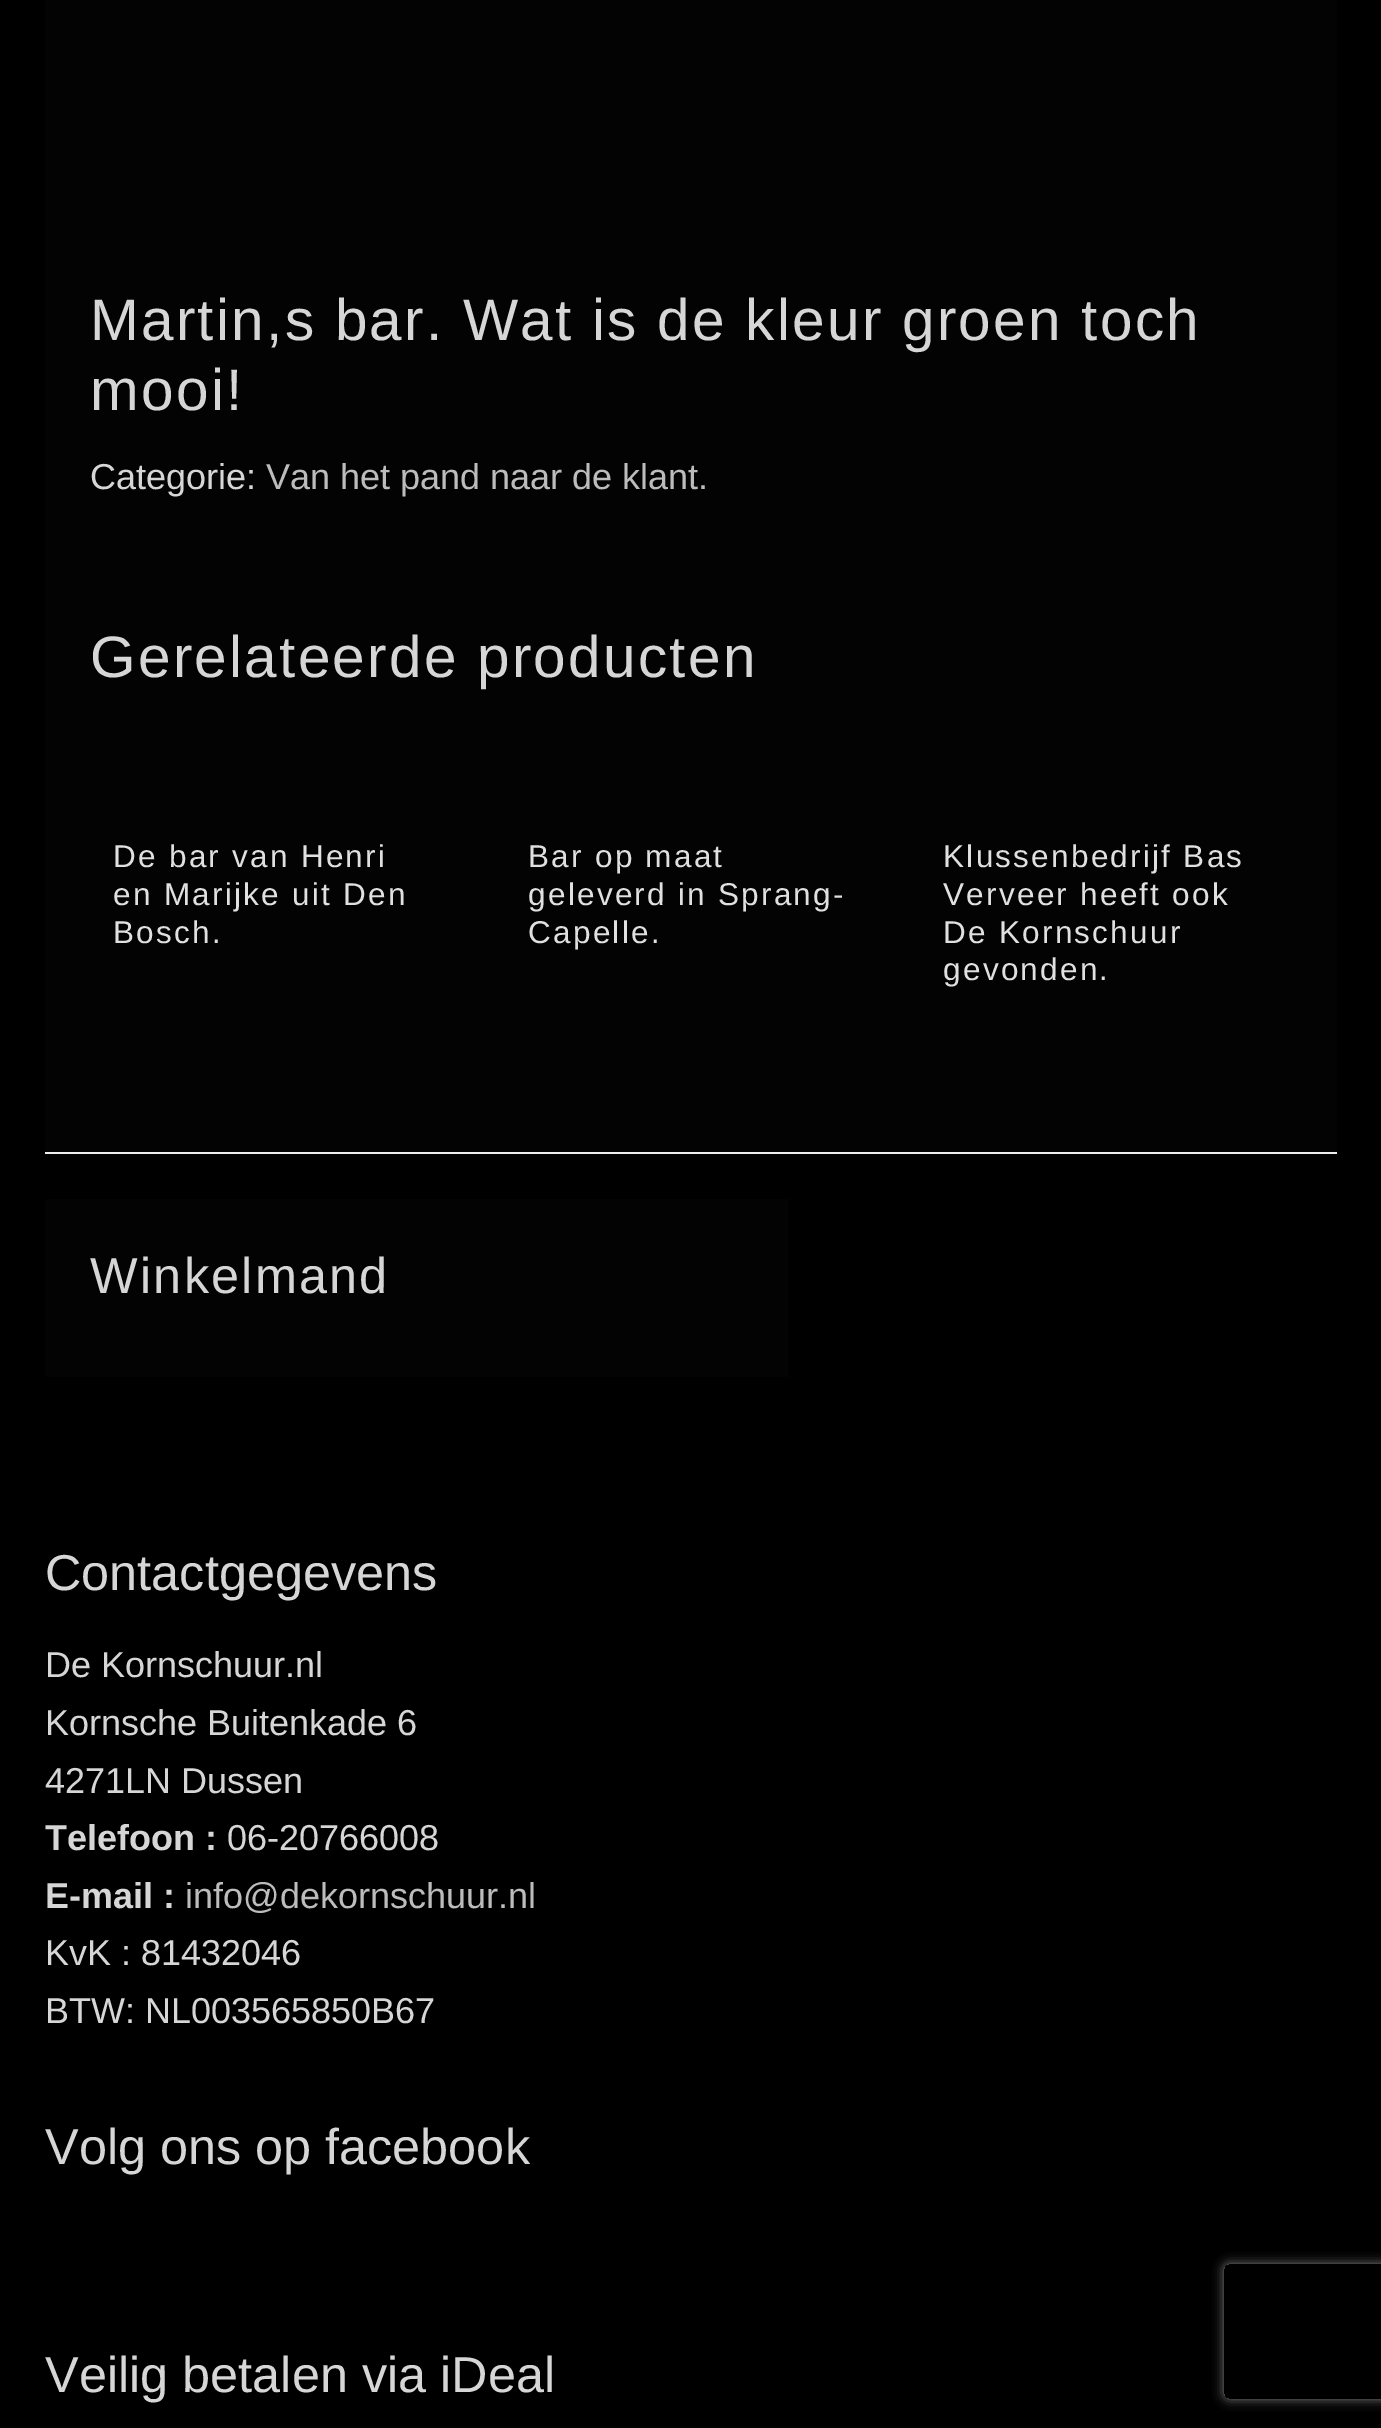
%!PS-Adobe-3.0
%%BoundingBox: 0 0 1381 2428
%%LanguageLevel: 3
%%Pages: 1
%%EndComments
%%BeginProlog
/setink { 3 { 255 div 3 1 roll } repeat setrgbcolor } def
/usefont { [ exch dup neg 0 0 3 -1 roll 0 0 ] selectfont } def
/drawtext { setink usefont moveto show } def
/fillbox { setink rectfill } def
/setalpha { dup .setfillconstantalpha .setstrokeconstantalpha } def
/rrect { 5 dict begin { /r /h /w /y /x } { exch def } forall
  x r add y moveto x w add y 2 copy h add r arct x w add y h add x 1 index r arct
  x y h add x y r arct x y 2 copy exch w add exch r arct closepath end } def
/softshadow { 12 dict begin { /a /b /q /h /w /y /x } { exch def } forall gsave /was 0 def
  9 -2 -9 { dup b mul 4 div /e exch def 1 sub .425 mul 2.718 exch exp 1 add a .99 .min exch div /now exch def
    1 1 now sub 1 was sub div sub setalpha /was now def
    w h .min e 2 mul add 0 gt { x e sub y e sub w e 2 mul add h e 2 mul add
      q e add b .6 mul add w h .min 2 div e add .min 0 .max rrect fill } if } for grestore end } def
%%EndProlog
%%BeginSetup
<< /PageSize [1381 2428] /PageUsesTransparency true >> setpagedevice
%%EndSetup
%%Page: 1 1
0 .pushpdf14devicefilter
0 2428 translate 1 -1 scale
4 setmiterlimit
0 0 1381 2428 0 0 0 fillbox
45 1152 1292 2 238 238 238 fillbox
45 0 1292 1152 3 3 3 fillbox
/LiberationSans-Regular 58.5 usefont
214 214 214 setink
90 340 moveto 2.25 0 (Martin,s bar. Wat is de kleur groen toch) ashow
90 410 moveto 2.25 0 (mooi!) ashow
(Categorie:) 90 489 /LiberationSans-Regular 36 214 214 214 drawtext
(Van het pand naar de klant.) 266 489 /LiberationSans-Regular 36 188 188 188 drawtext
/LiberationSans-Regular 58.5 usefont
214 214 214 setink
90 677 moveto 2.25 0 (Gerelateerde producten) ashow
/LiberationSans-Regular 31.5 usefont
224 224 224 setink
113 867 moveto 2.25 0 (De bar van Henri) ashow
113 905 moveto 2.25 0 (en Marijke uit Den) ashow
113 943 moveto 2.25 0 (Bosch.) ashow
528 867 moveto 2.25 0 (Bar op maat) ashow
528 905 moveto 2.25 0 (geleverd in Sprang-) ashow
528 943 moveto 2.25 0 (Capelle.) ashow
943 867 moveto 2.25 0 (Klussenbedrijf Bas) ashow
943 905 moveto 2.25 0 (Verveer heeft ook) ashow
943 943 moveto 2.25 0 (De Kornschuur) ashow
943 980 moveto 2.25 0 (gevonden.) ashow
45 1199 743 178 3 3 3 fillbox
/LiberationSans-Regular 50.4 usefont
214 214 214 setink
90 1293 moveto 2.25 0 (Winkelmand) ashow
(Contactgegevens) 45 1590 /LiberationSans-Regular 50.4 214 214 214 drawtext
(De Kornschuur.nl) 45 1677 /LiberationSans-Regular 36 214 214 214 drawtext
(Kornsche Buitenkade 6) 45 1735 /LiberationSans-Regular 36 214 214 214 drawtext
(4271LN Dussen) 45 1793 /LiberationSans-Regular 36 214 214 214 drawtext
(Telefoon :) 45 1850 /LiberationSans-Bold 36 214 214 214 drawtext
(06-20766008) 227 1850 /LiberationSans-Regular 36 214 214 214 drawtext
(E-mail :) 45 1908 /LiberationSans-Bold 36 214 214 214 drawtext
(info@dekornschuur.nl) 185 1908 /LiberationSans-Regular 36 188 188 188 drawtext
(KvK : 81432046) 45 1965 /LiberationSans-Regular 36 214 214 214 drawtext
(BTW: NL003565850B67) 45 2023 /LiberationSans-Regular 36 214 214 214 drawtext
(Volg ons op facebook) 45 2164 /LiberationSans-Regular 50.4 214 214 214 drawtext
(Veilig betalen via iDeal) 45 2392 /LiberationSans-Regular 50.4 214 214 214 drawtext
gsave
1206 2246 moveto 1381 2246 lineto 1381 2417 lineto 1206 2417 lineto closepath 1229 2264 moveto 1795 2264 lineto 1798 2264 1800 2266 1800 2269 curveto 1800 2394 lineto 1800 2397 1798 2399 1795 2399 curveto 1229 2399 lineto 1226 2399 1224 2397 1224 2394 curveto 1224 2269 lineto 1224 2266 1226 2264 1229 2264 curveto closepath eoclip newpath
128 128 128 setink
1224 2264 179 135 5 5.5 1 softshadow
grestore
.poppdf14devicefilter showpage
%%EOF
